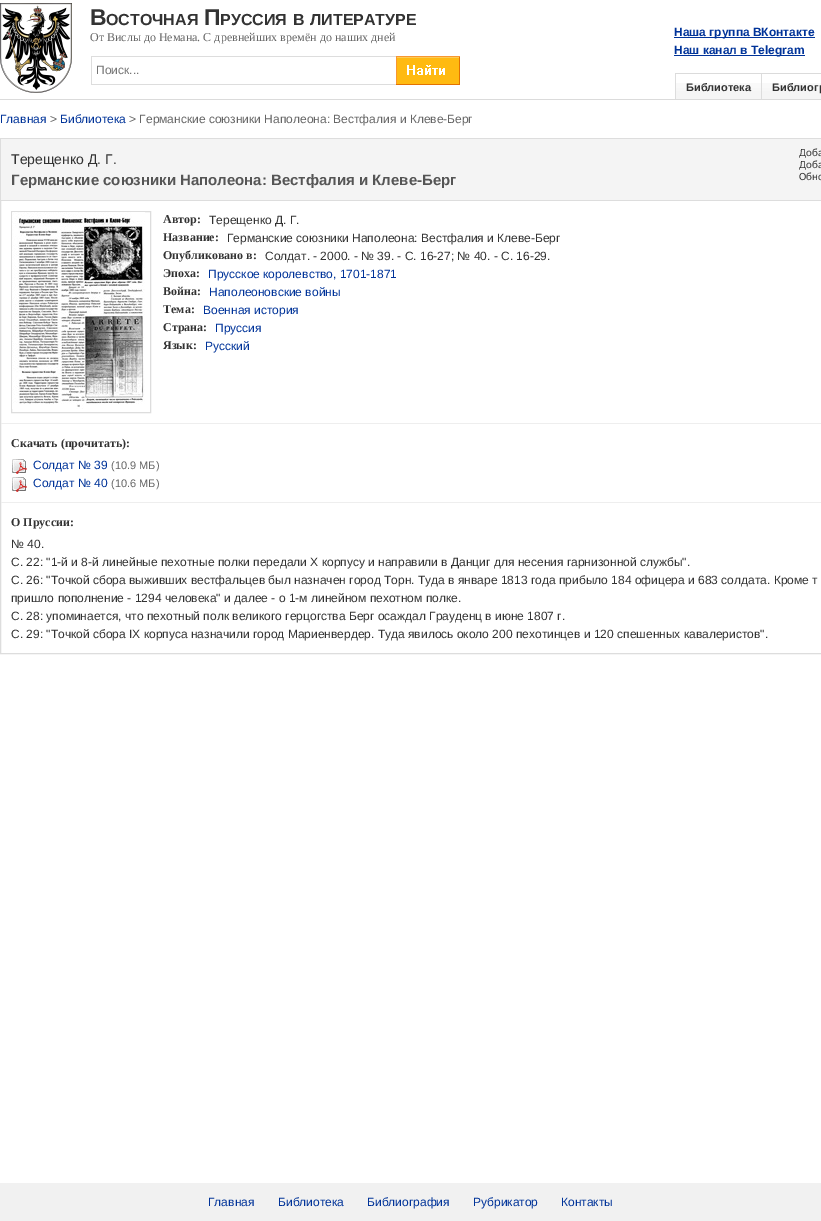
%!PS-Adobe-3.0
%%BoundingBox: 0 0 821 1221
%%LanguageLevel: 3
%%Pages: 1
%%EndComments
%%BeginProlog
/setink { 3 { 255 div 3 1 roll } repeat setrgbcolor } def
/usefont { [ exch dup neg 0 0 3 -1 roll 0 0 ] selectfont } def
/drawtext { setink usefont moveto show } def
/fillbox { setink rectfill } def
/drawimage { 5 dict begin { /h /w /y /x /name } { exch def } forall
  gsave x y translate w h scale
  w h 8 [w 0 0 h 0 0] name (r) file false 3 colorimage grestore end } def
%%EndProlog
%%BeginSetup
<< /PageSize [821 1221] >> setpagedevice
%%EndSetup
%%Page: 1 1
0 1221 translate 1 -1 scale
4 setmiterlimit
0 0 821 1221 255 255 255 fillbox
0 99 821 1 219 219 219 fillbox
(assets/img1.rgb) 0 3 72 90 drawimage
(В) 90 25 /LiberationSans-Bold 23 51 51 51 drawtext
(ОСТОЧНАЯ) 106 25 /LiberationSans-Bold 16 51 51 51 drawtext
(П) 204 25 /LiberationSans-Bold 23 51 51 51 drawtext
(РУССИЯ) 220 25 /LiberationSans-Bold 16 51 51 51 drawtext
(В) 293 25 /LiberationSans-Bold 16 51 51 51 drawtext
(ЛИТЕРАТУРЕ) 310 25 /LiberationSans-Bold 16 51 51 51 drawtext
(От Вислы до Немана. С древнейших времён до наших дней) 90 41 /LiberationSerif-Regular 12 102 102 102 drawtext
91 56 305 1 221 221 221 fillbox
91 84 305 1 221 221 221 fillbox
91 56 1 29 221 221 221 fillbox
(Поиск...) 96 74 /LiberationSans-Regular 12 117 117 117 drawtext
(assets/img2.rgb) 396 56 64 29 drawimage
674 37 141 1 0 51 153 fillbox
(Наша группа ВКонтакте) 674 36 /LiberationSans-Bold 12 0 51 153 drawtext
674 55 131 1 0 51 153 fillbox
(Наш канал в Telegram) 674 54 /LiberationSans-Bold 12 0 51 153 drawtext
675 73 146 1 219 219 219 fillbox
(assets/img3.rgb) 676 83 85 16 drawimage
675 74 1 25 221 221 221 fillbox
(Библиотека) 686 91 /LiberationSans-Bold 11 51 51 51 drawtext
(assets/img4.rgb) 762 83 59 16 drawimage
761 74 1 25 221 221 221 fillbox
(Библиогр) 772 91 /LiberationSans-Bold 11 51 51 51 drawtext
(Главная) 0 123 /LiberationSans-Regular 12 0 51 153 drawtext
(>) 50 123 /LiberationSans-Regular 12 102 102 102 drawtext
(Библиотека) 60 123 /LiberationSans-Regular 12 0 51 153 drawtext
(> Германские союзники Наполеона: Вестфалия и Клеве-Берг) 129 123 /LiberationSans-Regular 12 102 102 102 drawtext
221 221 221 setink
0.5 138.5 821 515 rectstroke
1 139 820 61 244 244 244 fillbox
1 200 820 1 221 221 221 fillbox
(Терещенко Д. Г.) 11 164 /LiberationSans-Regular 14 51 51 51 drawtext
(Германские союзники Наполеона: Вестфалия и Клеве-Берг) 11 185 /LiberationSans-Bold 15 85 85 85 drawtext
(Доба) 799 156 /Carlito-Regular 11 51 51 51 drawtext
(Доба) 799 168 /Carlito-Regular 11 51 51 51 drawtext
(Обно) 799 180 /Carlito-Regular 11 51 51 51 drawtext
221 221 221 setink
11.5 211.5 139 201 rectstroke
(assets/img5.rgb) 12 212 133 197 drawimage
(Автор:) 163 223 /LiberationSerif-Bold 12 51 51 51 drawtext
(Терещенко Д. Г.) 209 224 /LiberationSans-Regular 12 51 51 51 drawtext
(Название:) 163 241 /LiberationSerif-Bold 12 51 51 51 drawtext
(Германские союзники Наполеона: Вестфалия и Клеве-Берг) 227 242 /LiberationSans-Regular 12 51 51 51 drawtext
(Опубликовано в:) 163 259 /LiberationSerif-Bold 12 51 51 51 drawtext
(Солдат. - 2000. - № 39. - С. 16-27; № 40. - С. 16-29.) 265 260 /LiberationSans-Regular 12 51 51 51 drawtext
(Эпоха:) 163 277 /LiberationSerif-Bold 12 51 51 51 drawtext
(Прусское королевство, 1701-1871) 208 278 /LiberationSans-Regular 12 0 51 153 drawtext
(Война:) 163 295 /LiberationSerif-Bold 12 51 51 51 drawtext
(Наполеоновские войны) 209 296 /LiberationSans-Regular 12 0 51 153 drawtext
(Тема:) 163 313 /LiberationSerif-Bold 12 51 51 51 drawtext
(Военная история) 203 314 /LiberationSans-Regular 12 0 51 153 drawtext
(Страна:) 163 331 /LiberationSerif-Bold 12 51 51 51 drawtext
(Пруссия) 215 332 /LiberationSans-Regular 12 0 51 153 drawtext
(Язык:) 163 349 /LiberationSerif-Bold 12 51 51 51 drawtext
(Русский) 205 350 /LiberationSans-Regular 12 0 51 153 drawtext
1 423 820 1 238 238 238 fillbox
(Скачать \(прочитать\):) 11 447 /LiberationSerif-Bold 12 51 51 51 drawtext
(assets/img6.rgb) 12 459 15 15 drawimage
(Солдат № 39) 33 469 /LiberationSans-Regular 12 0 51 153 drawtext
(\(10.9 МБ\)) 111 469 /LiberationSans-Regular 11 102 102 102 drawtext
(assets/img6.rgb) 12 477 15 15 drawimage
(Солдат № 40) 33 487 /LiberationSans-Regular 12 0 51 153 drawtext
(\(10.6 МБ\)) 111 487 /LiberationSans-Regular 11 102 102 102 drawtext
1 502 820 1 238 238 238 fillbox
(О Пруссии:) 11 526 /LiberationSerif-Bold 12 51 51 51 drawtext
(№ 40.) 11 548 /LiberationSans-Regular 12 51 51 51 drawtext
(С. 22: "1-й и 8-й линейные пехотные полки передали X корпусу и направили в Данциг для несения гарнизонной службы".) 11 566 /LiberationSans-Regular 12 51 51 51 drawtext
(С. 26: "Точкой сбора выживших вестфальцев был назначен город Торн. Туда в январе 1813 года прибыло 184 офицера и 683 солдата. Кроме т) 11 584 /LiberationSans-Regular 12 51 51 51 drawtext
(пришло пополнение - 1294 человека" и далее - о 1-м линейном пехотном полке.) 11 602 /LiberationSans-Regular 12 51 51 51 drawtext
(С. 28: упоминается, что пехотный полк великого герцогства Берг осаждал Грауденц в июне 1807 г.) 11 620 /LiberationSans-Regular 12 51 51 51 drawtext
(С. 29: "Точкой сбора IX корпуса назначили город Мариенвердер. Туда явилось около 200 пехотинцев и 120 спешенных кавалеристов".) 11 638 /LiberationSans-Regular 12 51 51 51 drawtext
0 1183 821 38 241 241 241 fillbox
(Главная) 208 1206 /LiberationSans-Regular 12 0 51 153 drawtext
(Библиотека) 278 1206 /LiberationSans-Regular 12 0 51 153 drawtext
(Библиография) 367 1206 /LiberationSans-Regular 12 0 51 153 drawtext
(Рубрикатор) 473 1206 /LiberationSans-Regular 12 0 51 153 drawtext
(Контакты) 561 1206 /LiberationSans-Regular 12 0 51 153 drawtext
showpage
%%EOF
